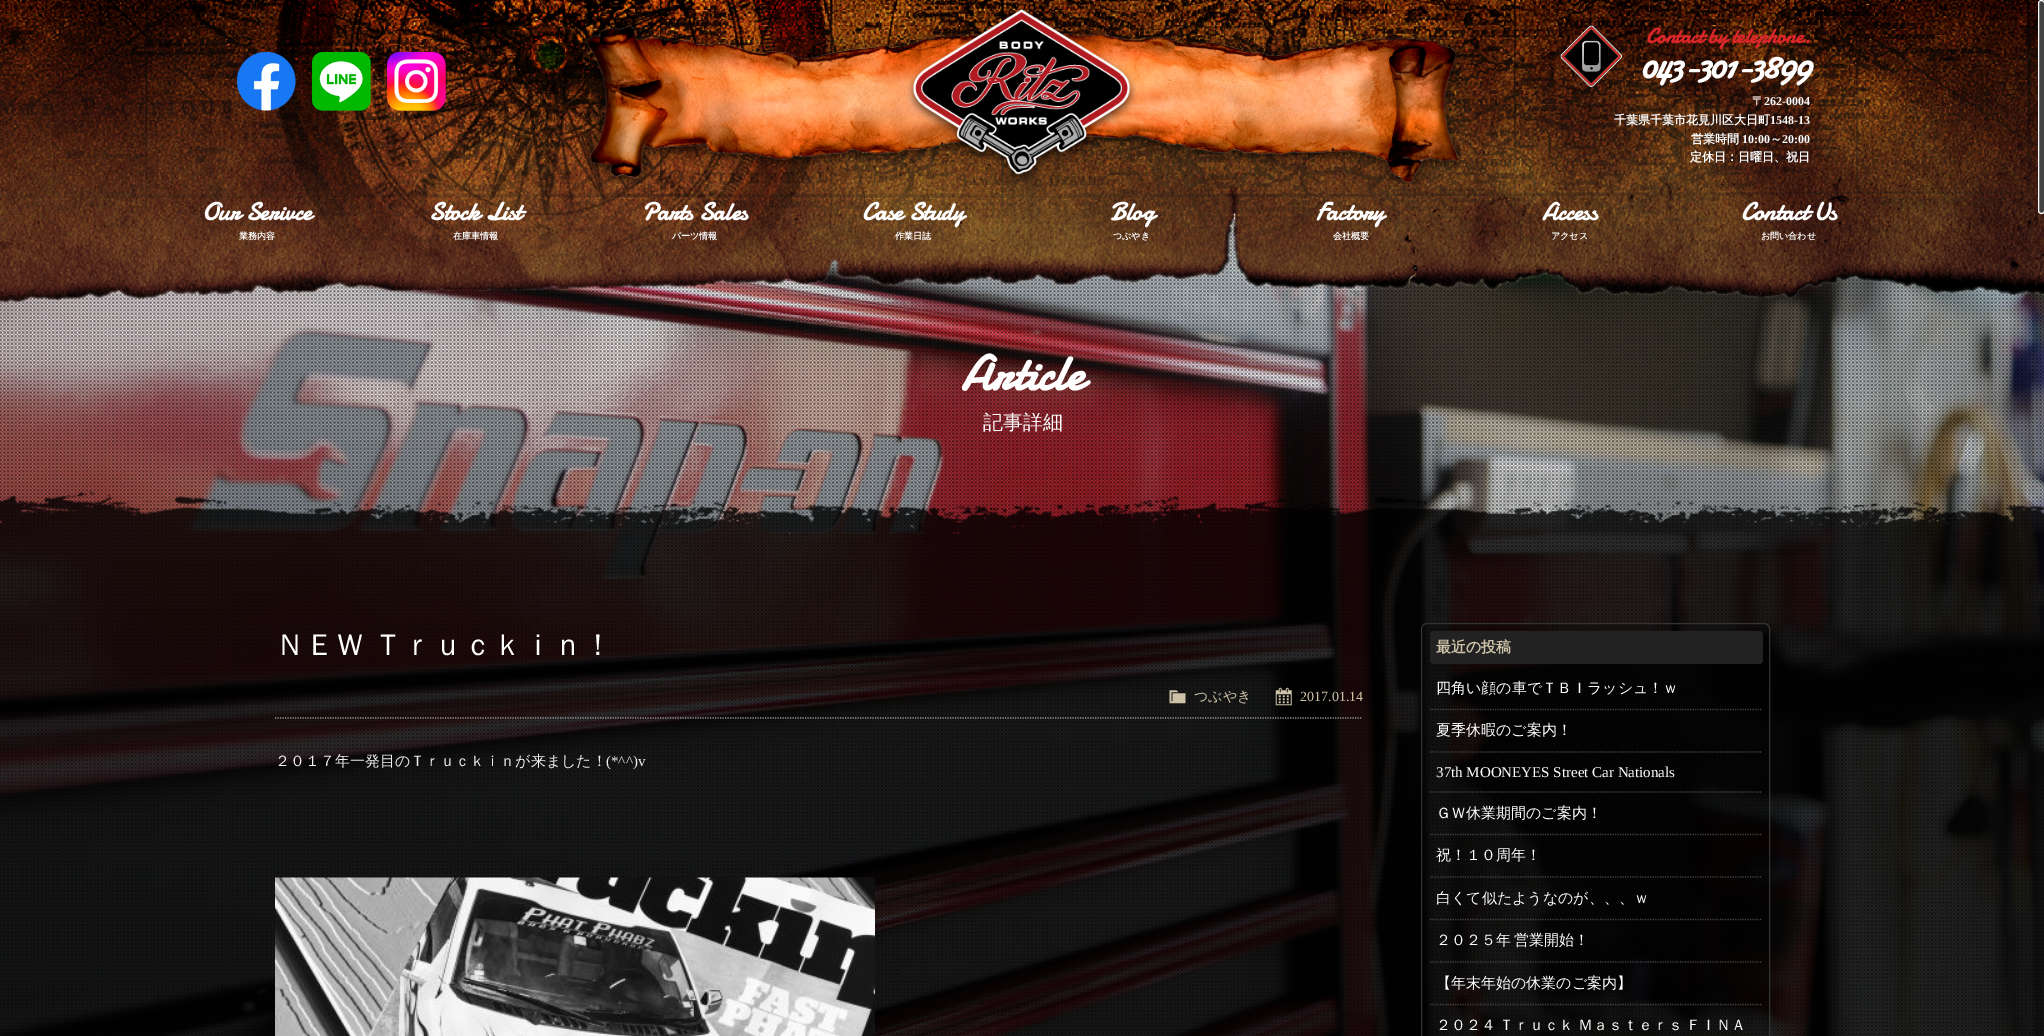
%!PS-Adobe-3.0
%%BoundingBox: 0 0 2044 1036
%%LanguageLevel: 3
%%Pages: 1
%%EndComments
%%BeginProlog
/setink { 3 { 255 div 3 1 roll } repeat setrgbcolor } def
/usefont { [ exch dup neg 0 0 3 -1 roll 0 0 ] selectfont } def
/drawtext { setink usefont moveto show } def
/fillbox { setink rectfill } def
/setalpha { dup .setfillconstantalpha .setstrokeconstantalpha } def
/rrect { 5 dict begin { /r /h /w /y /x } { exch def } forall
  x r add y moveto x w add y 2 copy h add r arct x w add y h add x 1 index r arct
  x y h add x y r arct x y 2 copy exch w add exch r arct closepath end } def
/drawimage { 5 dict begin { /h /w /y /x /name } { exch def } forall
  gsave x y translate w h scale
  w h 8 [w 0 0 h 0 0] name (r) file false 3 colorimage grestore end } def
%%EndProlog
%%BeginSetup
<< /PageSize [2044 1036] /PageUsesTransparency true >> setpagedevice
%%EndSetup
%%Page: 1 1
0 .pushpdf14devicefilter
0 1036 translate 1 -1 scale
4 setmiterlimit
0 0 2044 1036 255 255 255 fillbox
(assets/img9.rgb) 0 216 2044 820 drawimage
(assets/img10.rgb) 0 216 2044 820 drawimage
(assets/img1.rgb) 0 491 2044 44 drawimage
(assets/img2.rgb) 0 0 2044 304 drawimage
(assets/img3.rgb) 585 21 875 163 drawimage
(assets/img4.rgb) 237 52 59 59 drawimage
(assets/img5.rgb) 312 52 59 59 drawimage
(assets/img6.rgb) 387 52 59 59 drawimage
(assets/img7.rgb) 907 8 230 176 drawimage
(assets/img8.rgb) 1560 25 62 62 drawimage
(Contact by telephone.) 1646 43 /Damion-Bold 21.25 220 38 41 drawtext
/Damion-Bold 37.5 usefont
255 255 255 setink
1640 78 moveto -2.5 0 (043-301-3899) ashow
(〒) 1752 105 /WenQuanYiZenHei-Bold 12 255 255 255 drawtext
(262-0004) 1764 105 /LiberationSerif-Bold 12 255 255 255 drawtext
(千葉県千葉市花見川区大日町) 1614 124 /WenQuanYiZenHei-Bold 12 255 255 255 drawtext
(1548-13) 1770 124 /LiberationSerif-Bold 12 255 255 255 drawtext
(営業時間) 1691 143 /WenQuanYiZenHei-Bold 12 255 255 255 drawtext
(10:00) 1742 143 /LiberationSerif-Bold 12 255 255 255 drawtext
(～) 1770 143 /WenQuanYiZenHei-Bold 12 255 255 255 drawtext
(20:00) 1782 143 /LiberationSerif-Bold 12 255 255 255 drawtext
(定休日：日曜日、祝日) 1690 161 /WenQuanYiZenHei-Bold 12 255 255 255 drawtext
(Our Serivce) 202 220 /Damion-Bold 25 255 255 255 drawtext
(業務内容) 239 239 /WenQuanYiZenHei-Bold 9 255 255 255 drawtext
(Stock List) 429 220 /Damion-Bold 25 255 255 255 drawtext
(在庫車情報) 453 239 /WenQuanYiZenHei-Bold 9 255 255 255 drawtext
(Parts Sales) 642 220 /Damion-Bold 25 255 255 255 drawtext
(パーツ情報) 672 239 /WenQuanYiZenHei-Bold 9 255 255 255 drawtext
(Case Study) 862 220 /Damion-Bold 25 255 255 255 drawtext
(作業日誌) 895 239 /WenQuanYiZenHei-Bold 9 255 255 255 drawtext
(Blog) 1110 220 /Damion-Bold 25 255 255 255 drawtext
(つぶやき) 1113 239 /WenQuanYiZenHei-Bold 9 255 255 255 drawtext
(Factory) 1316 220 /Damion-Bold 25 255 255 255 drawtext
(会社概要) 1333 239 /WenQuanYiZenHei-Bold 9 255 255 255 drawtext
(Access) 1542 220 /Damion-Bold 25 255 255 255 drawtext
(アクセス) 1551 239 /WenQuanYiZenHei-Bold 9 255 255 255 drawtext
(Contact Us) 1741 220 /Damion-Bold 25 255 255 255 drawtext
(お問い合わせ) 1761 239 /WenQuanYiZenHei-Bold 9 255 255 255 drawtext
(Article) 961 390 /Damion-Bold 50 255 255 255 drawtext
(記事詳細) 983 429 /WenQuanYiZenHei-Medium 20 255 255 255 drawtext
66 66 66 setink
2038.5 0.5 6 213 3 rrect gsave fill grestore
255 255 255 setink
stroke
0.8 setalpha
0 535 2044 501 0 0 0 fillbox
/WenQuanYiZenHei-Medium 30 usefont
1 setalpha
255 255 255 setink
275 655 moveto -1 0 32 (ＮＥＷ Ｔｒｕｃｋｉｎ！) widthshow
153 153 153 setink
1.2 setlinewidth
[1.25 1.25] 0 setdash
275 718 moveto 1362.5 718 lineto stroke
(assets/img11.rgb) 1169 690 17 14 drawimage
(つぶやき) 1194 701 /WenQuanYiZenHei-Medium 14 206 195 168 drawtext
(assets/img12.rgb) 1275 687 17 19 drawimage
(2017.01.14) 1300 701 /LiberationSerif-Regular 14 206 195 168 drawtext
(２０１７年一発目のＴｒｕｃｋｉｎが来ました！) 275 766 /WenQuanYiZenHei-Medium 15 240 240 240 drawtext
(\(*^^\)v) 606 766 /LiberationSerif-Regular 15 240 240 240 drawtext
(assets/img13.rgb) 275 877 600 159 drawimage
0.3 setalpha
0 0 0 setink
1421.5 623.5 348 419 5.5 rrect fill
1 setalpha
51 51 51 setink
1 setlinewidth
[] 0 setdash
1421.5 623.5 348 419 5.5 rrect stroke
34 34 34 setink
1430 631 333 33 4 rrect fill
(最近の投稿) 1436 652 /WenQuanYiZenHei-Bold 15 206 195 168 drawtext
68 68 68 setink
1.2 setlinewidth
[1.25 1.25] 0 setdash
1430 709.5 moveto 1762.5 709.5 lineto stroke
(四角い顔の車でＴＢＩラッシュ！ｗ) 1436 693 /WenQuanYiZenHei-Medium 15 255 255 255 drawtext
68 68 68 setink
1430 752 moveto 1762.5 752 lineto stroke
(夏季休暇のご案内！) 1436 735 /WenQuanYiZenHei-Medium 15 255 255 255 drawtext
68 68 68 setink
1430 792 moveto 1762.5 792 lineto stroke
(37th MOONEYES Street Car Nationals) 1436 777 /LiberationSerif-Regular 15 255 255 255 drawtext
68 68 68 setink
1430 834.5 moveto 1762.5 834.5 lineto stroke
(ＧＷ休業期間のご案内！) 1436 818 /WenQuanYiZenHei-Medium 15 255 255 255 drawtext
68 68 68 setink
1430 877 moveto 1762.5 877 lineto stroke
(祝！１０周年！) 1436 860 /WenQuanYiZenHei-Medium 15 255 255 255 drawtext
68 68 68 setink
1430 919.5 moveto 1762.5 919.5 lineto stroke
(白くて似たようなのが、、、ｗ) 1436 903 /WenQuanYiZenHei-Medium 15 255 255 255 drawtext
68 68 68 setink
1430 962 moveto 1762.5 962 lineto stroke
255 255 255 setink
1436 945 moveto -1 0 32 (２０２５年 営業開始！) widthshow
68 68 68 setink
1430 1004.5 moveto 1762.5 1004.5 lineto stroke
(【年末年始の休業のご案内】) 1436 988 /WenQuanYiZenHei-Medium 15 255 255 255 drawtext
1436 1030 moveto -1 0 32 (２０２４ Ｔｒｕｃｋ Ｍａｓｔｅｒｓ ＦＩＮＡ) widthshow
.poppdf14devicefilter showpage
%%EOF
